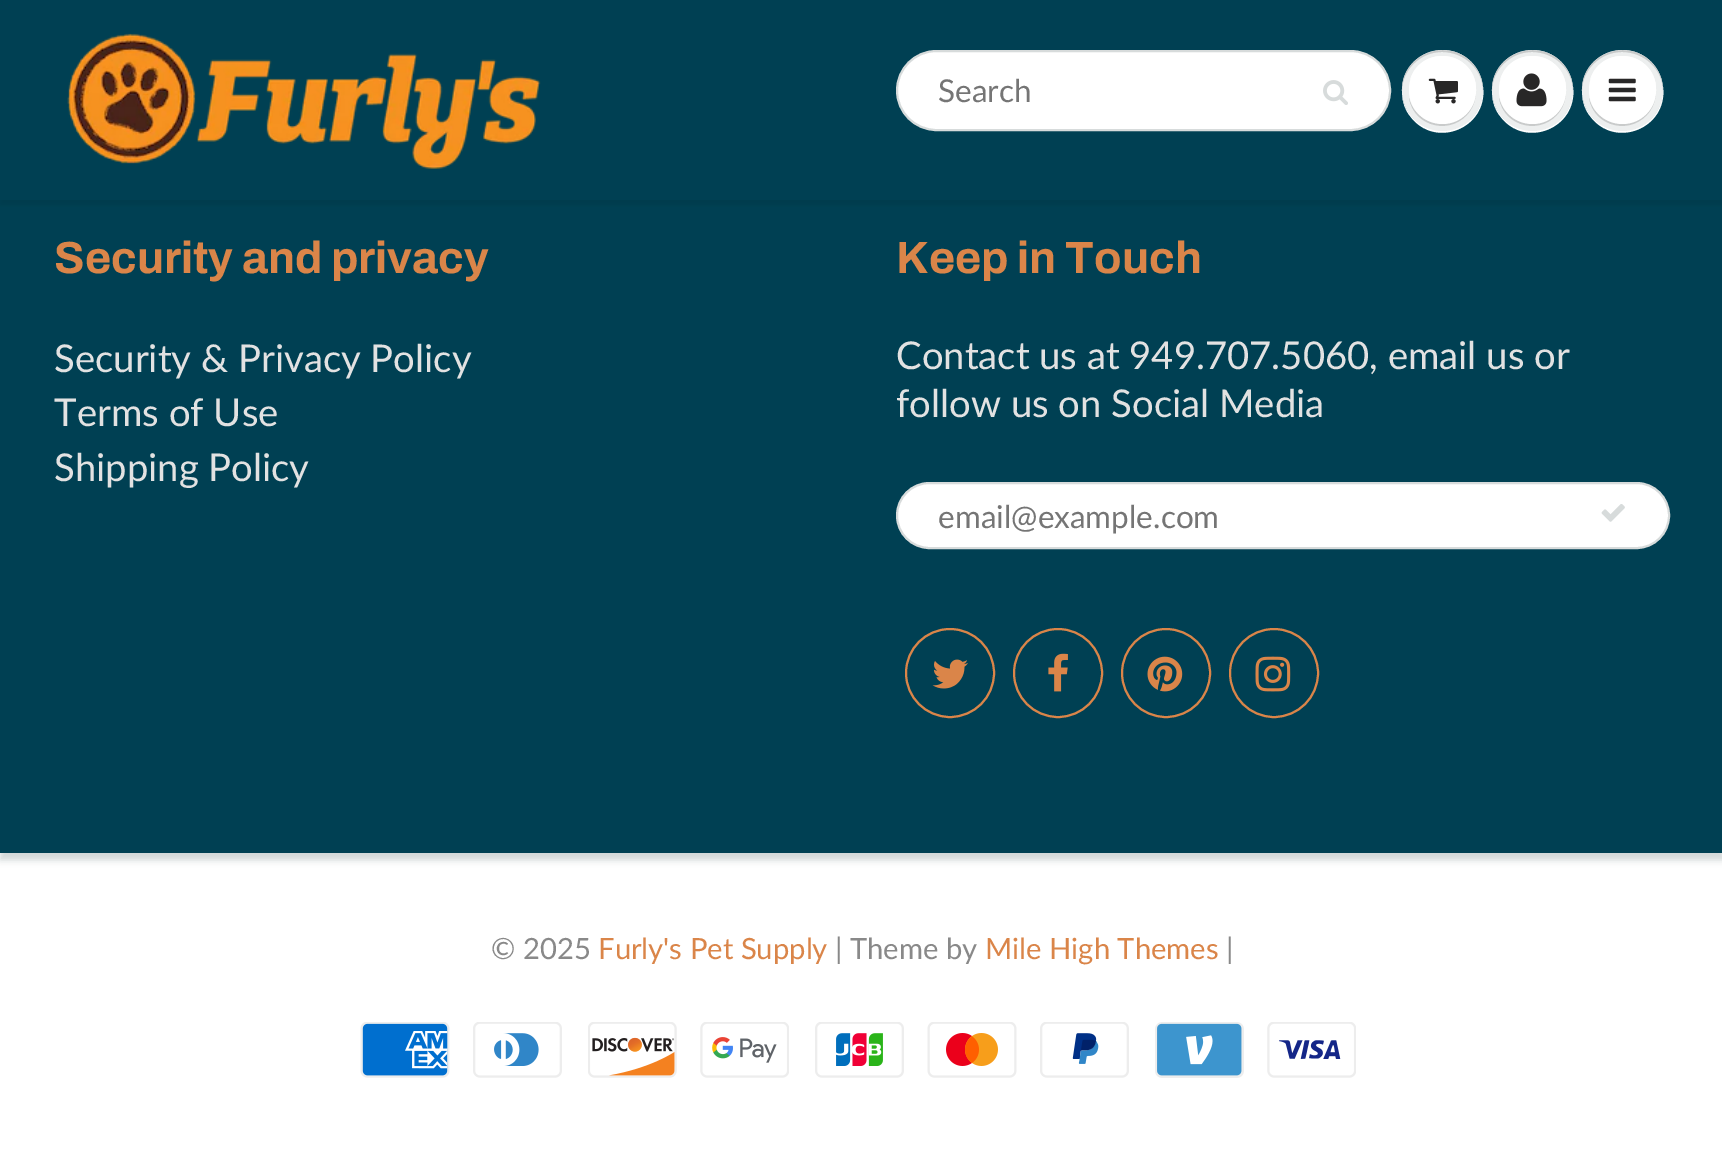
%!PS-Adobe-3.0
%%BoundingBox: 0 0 1722 1165
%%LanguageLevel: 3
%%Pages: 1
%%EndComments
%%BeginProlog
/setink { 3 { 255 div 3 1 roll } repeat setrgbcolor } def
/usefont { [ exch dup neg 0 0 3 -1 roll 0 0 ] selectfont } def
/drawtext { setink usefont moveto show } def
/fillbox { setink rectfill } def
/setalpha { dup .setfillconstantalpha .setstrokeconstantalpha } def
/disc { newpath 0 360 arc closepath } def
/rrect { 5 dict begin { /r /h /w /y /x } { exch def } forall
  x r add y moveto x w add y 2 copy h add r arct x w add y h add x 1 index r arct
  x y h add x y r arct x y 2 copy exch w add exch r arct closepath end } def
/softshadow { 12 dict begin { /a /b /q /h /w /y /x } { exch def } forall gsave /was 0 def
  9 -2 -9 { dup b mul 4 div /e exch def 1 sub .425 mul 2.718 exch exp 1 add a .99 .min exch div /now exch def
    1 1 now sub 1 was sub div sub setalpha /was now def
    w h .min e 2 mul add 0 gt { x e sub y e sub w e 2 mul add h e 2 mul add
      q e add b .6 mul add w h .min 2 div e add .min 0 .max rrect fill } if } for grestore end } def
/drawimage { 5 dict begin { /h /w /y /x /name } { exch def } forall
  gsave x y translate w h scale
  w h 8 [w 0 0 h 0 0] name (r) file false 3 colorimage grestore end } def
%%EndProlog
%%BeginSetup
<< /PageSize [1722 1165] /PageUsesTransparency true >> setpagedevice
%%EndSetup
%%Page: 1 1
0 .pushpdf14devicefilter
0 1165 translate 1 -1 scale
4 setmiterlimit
0 0 1722 1165 255 255 255 fillbox
209 215 215 setink
0 -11 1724 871 0 3.5 1 softshadow
0 200 1722 653 0 64 83 fillbox
11 25 28 setink
0 5 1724 200 0 2 0.12 softshadow
0 0 1722 200 0 64 83 fillbox
(assets/img1.rgb) 67 33 474 136 drawimage
255 255 255 setink
897 51 493 79 39.5 rrect gsave fill grestore
215 219 219 setink
2 setlinewidth
stroke
(Search) 938 102 /Lato-Regular 31.5 117 117 117 drawtext
(assets/img2.rgb) 1323 80 25 25 drawimage
255 255 255 setink
1402 95 moveto 1403 103 1405 110 1410 116 curveto 1435 150 1488 128 1483 87 curveto 1483 96 1481 105 1476 113 curveto 1455 143 1407 132 1402 95 curveto closepath fill
237 239 239 setink
1442.5 90.5 40.5 disc fill
201 203 203 setink
1476 91 moveto 1475 130 1419 136 1409 98 curveto 1414 128 1453 136 1470 111 curveto 1474 105 1476 98 1476 91 curveto closepath fill
1442 52 moveto 1465 52 1483 70 1483 91 curveto 1483 83 1481 75 1476 68 curveto 1454 35 1401 51 1402 91 curveto 1402 70 1420 52 1442 52 curveto closepath fill
255 255 255 setink
1409 56 67 68 33.5 rrect fill
1442 58 moveto 1461 58 1476 74 1476 91 curveto 1477 51 1421 43 1410 80 curveto 1415 68 1428 58 1442 58 curveto closepath fill
(assets/img3.rgb) 1428 78 30 26 drawimage
1492 95 moveto 1493 103 1495 110 1500 116 curveto 1525 150 1578 128 1573 87 curveto 1573 96 1571 105 1566 113 curveto 1545 143 1497 132 1492 95 curveto closepath fill
237 239 239 setink
1532.5 90.5 40.5 disc fill
201 203 203 setink
1566 91 moveto 1565 130 1509 136 1499 98 curveto 1504 128 1543 136 1560 111 curveto 1564 105 1566 98 1566 91 curveto closepath fill
1532 52 moveto 1555 52 1573 70 1573 91 curveto 1573 83 1571 75 1566 68 curveto 1544 35 1491 51 1492 91 curveto 1492 70 1510 52 1532 52 curveto closepath fill
255 255 255 setink
1499 56 67 68 33.5 rrect fill
1532 58 moveto 1551 58 1566 74 1566 91 curveto 1567 51 1511 43 1500 80 curveto 1505 68 1518 58 1532 58 curveto closepath fill
(assets/img4.rgb) 1516 73 31 34 drawimage
1582 95 moveto 1583 103 1585 110 1590 116 curveto 1615 150 1668 128 1663 87 curveto 1663 96 1661 105 1656 113 curveto 1635 143 1587 132 1582 95 curveto closepath fill
237 239 239 setink
1622.5 90.5 40.5 disc fill
201 203 203 setink
1656 91 moveto 1655 130 1599 136 1589 98 curveto 1594 128 1633 136 1650 111 curveto 1654 105 1656 98 1656 91 curveto closepath fill
1622 52 moveto 1645 52 1663 70 1663 91 curveto 1663 83 1661 75 1656 68 curveto 1634 35 1581 51 1582 91 curveto 1582 70 1600 52 1622 52 curveto closepath fill
255 255 255 setink
1589 56 67 68 33.5 rrect fill
1622 58 moveto 1641 58 1656 74 1656 91 curveto 1657 51 1601 43 1590 80 curveto 1595 68 1608 58 1622 58 curveto closepath fill
(assets/img5.rgb) 1608 78 28 24 drawimage
(Security and privacy) 54 273 /Archivo-Bold 45 218 133 73 drawtext
(Security & Privacy Policy) 54 372 /Lato-Regular 38.25 226 226 226 drawtext
(Terms of Use) 54 426 /Lato-Regular 38.25 226 226 226 drawtext
(Shipping Policy) 54 481 /Lato-Regular 38.25 226 226 226 drawtext
(Keep in Touch) 896 273 /Archivo-Bold 45 218 133 73 drawtext
(Contact us at 949.707.5060, email us or) 896 369 /Lato-Regular 38.25 226 226 226 drawtext
(follow us on Social Media) 896 417 /Lato-Regular 38.25 226 226 226 drawtext
255 255 255 setink
897 483 772 65 32.5 rrect gsave fill grestore
215 219 219 setink
stroke
(email@example.com) 938 528 /Lato-Regular 31.5 117 117 117 drawtext
(assets/img6.rgb) 1601 504 24 18 drawimage
218 133 73 setink
950 673 44 disc stroke
(assets/img7.rgb) 932 659 36 30 drawimage
1058 673 44 disc stroke
(assets/img8.rgb) 1048 653 20 39 drawimage
1166 673 44 disc stroke
(assets/img9.rgb) 1147 656 36 36 drawimage
1274 673 44 disc stroke
(assets/img10.rgb) 1255 656 36 36 drawimage
(© 2025) 491 959 /Lato-Regular 29.25 137 137 137 drawtext
(Furly's Pet Supply) 598 959 /Lato-Regular 29.25 218 133 73 drawtext
(| Theme by) 835 959 /Lato-Regular 29.25 137 137 137 drawtext
(Mile High Themes) 985 959 /Lato-Regular 29.25 218 133 73 drawtext
(|) 1226 959 /Lato-Regular 29.25 137 137 137 drawtext
(assets/img11.rgb) 360 1022 90 56 drawimage
(assets/img12.rgb) 473 1022 89 56 drawimage
(assets/img13.rgb) 588 1022 89 56 drawimage
(assets/img14.rgb) 700 1022 89 56 drawimage
(assets/img15.rgb) 815 1022 89 56 drawimage
(assets/img16.rgb) 927 1022 90 56 drawimage
(assets/img17.rgb) 1040 1022 89 56 drawimage
(assets/img18.rgb) 1155 1022 89 56 drawimage
(assets/img19.rgb) 1267 1022 89 56 drawimage
.poppdf14devicefilter showpage
%%EOF
